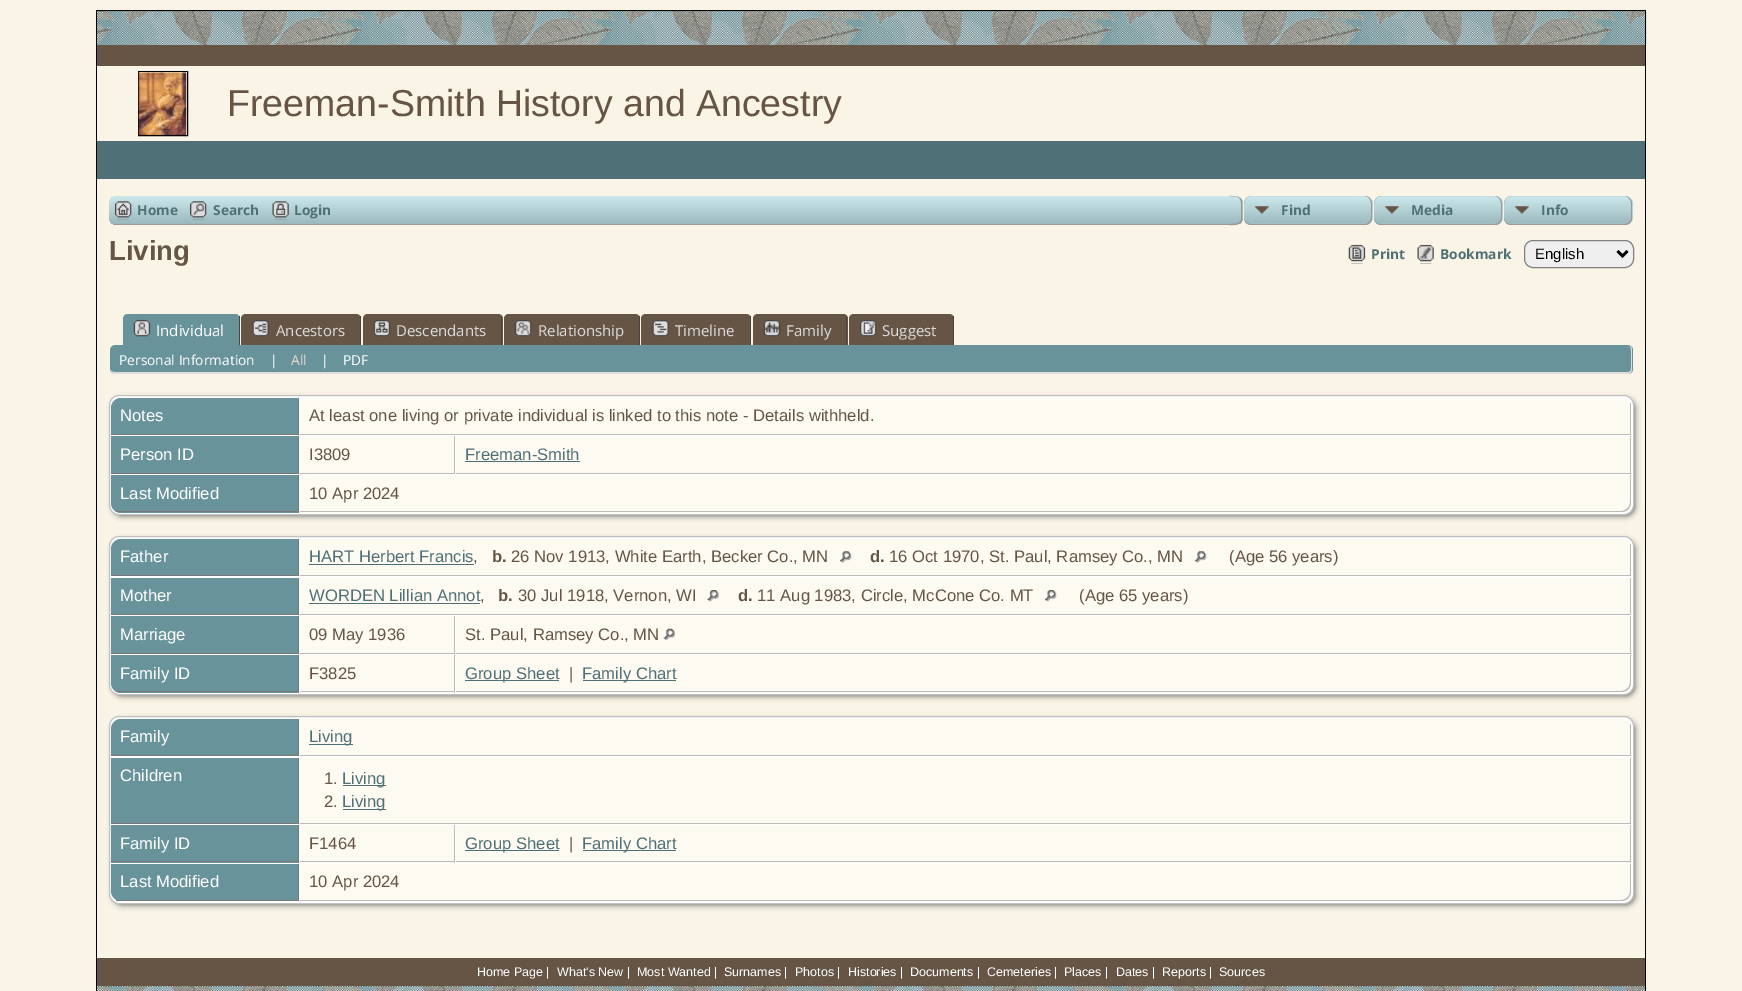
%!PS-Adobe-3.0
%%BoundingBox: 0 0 1742 991
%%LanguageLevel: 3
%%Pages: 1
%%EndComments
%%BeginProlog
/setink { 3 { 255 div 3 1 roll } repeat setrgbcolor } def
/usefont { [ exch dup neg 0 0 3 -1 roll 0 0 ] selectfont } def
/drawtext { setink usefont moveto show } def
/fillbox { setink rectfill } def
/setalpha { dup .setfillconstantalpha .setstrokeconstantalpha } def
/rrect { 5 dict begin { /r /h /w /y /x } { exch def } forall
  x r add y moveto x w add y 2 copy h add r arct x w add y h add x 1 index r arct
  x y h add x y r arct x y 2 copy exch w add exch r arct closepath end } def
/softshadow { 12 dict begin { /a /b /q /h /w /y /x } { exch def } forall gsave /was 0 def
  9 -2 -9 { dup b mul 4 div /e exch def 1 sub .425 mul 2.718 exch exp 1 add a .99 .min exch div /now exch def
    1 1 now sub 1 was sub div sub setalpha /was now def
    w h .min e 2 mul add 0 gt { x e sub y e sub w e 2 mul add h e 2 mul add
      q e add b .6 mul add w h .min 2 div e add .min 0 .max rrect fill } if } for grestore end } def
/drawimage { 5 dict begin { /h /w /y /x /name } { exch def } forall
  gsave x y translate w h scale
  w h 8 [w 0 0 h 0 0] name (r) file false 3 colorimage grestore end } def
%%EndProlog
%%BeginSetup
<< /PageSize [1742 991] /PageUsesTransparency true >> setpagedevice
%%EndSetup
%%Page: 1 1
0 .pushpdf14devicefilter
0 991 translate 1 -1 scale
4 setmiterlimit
0 0 1742 991 250 244 230 fillbox
96 10 1550 1 0 0 0 fillbox
(assets/img1.rgb) 97 11 1550 34 drawimage
(assets/img23.rgb) 97 986 1550 5 drawimage
1645 10 1 981 0 0 0 fillbox
96 10 1 981 0 0 0 fillbox
97 45 1548 21 102 85 68 fillbox
0 0 0 setink
138.5 71.5 49 64 rectstroke
(assets/img2.rgb) 138 72 49 63 drawimage
(Freeman-Smith History and Ancestry) 227 116 /LiberationSans-Regular 37.5 102 85 68 drawtext
97 141 1548 38 78 112 118 fillbox
180 209 214 setink
109 196 1525 29 8 rrect fill
gsave
109 196 1525 29 8 rrect clip newpath
gsave 117 196 moveto 1626 196 lineto 1630.5 196 1634 199.5 1634 204 curveto 1634 224 lineto 109 224 lineto 109 204 lineto 109 199.5 112.5 196 117 196 curveto closepath clip newpath
<< /ShadingType 2 /ColorSpace /DeviceRGB /Coords [871 196 871 224] /Extend [true true] /Function << /FunctionType 2 /Domain [0 1] /C0 [0.796 0.914 0.929] /C1 [0.608 0.725 0.741] /N 1 >> >> shfill grestore
grestore
113 224 1116 1 153 153 153 fillbox
(assets/img3.rgb) 115 201 17 19 drawimage
(Home) 137 215 /OpenSans-Bold 13.75 78 112 118 drawtext
(assets/img4.rgb) 190 201 17 19 drawimage
(Search) 213 215 /OpenSans-Bold 13.75 78 112 118 drawtext
(assets/img5.rgb) 272 201 17 19 drawimage
(Login) 294 215 /OpenSans-Bold 13.75 78 112 118 drawtext
1234 196 400 29 250 244 230 fillbox
gsave
1229 196 moveto 1235 196 lineto 1239.5 196 1243 199.5 1243 204 curveto 1243 217 lineto 1243 221.5 1239.5 225 1235 225 curveto 1229 225 lineto closepath clip newpath
gsave 1229 196 moveto 1243 196 lineto 1243 224 lineto 1229 224 lineto closepath clip newpath
<< /ShadingType 2 /ColorSpace /DeviceRGB /Coords [1235 196 1235 224] /Extend [true true] /Function << /FunctionType 2 /Domain [0 1] /C0 [0.796 0.914 0.929] /C1 [0.608 0.725 0.741] /N 1 >> >> shfill grestore
grestore
153 153 153 setink
1229 196 moveto 1234 196 1241 195.5 1242.5 202 curveto 1242.5 219 lineto 1241 226 1234 225 1229 225 curveto closepath 1229 196 moveto 1236.5 196.5 lineto 1242.5 198 1241 206 1241 210.5 curveto 1241 219 lineto 1240 224.5 1233.5 224 1229 224 curveto closepath eofill
180 209 214 setink
1244 196 129 29 8 rrect fill
(assets/img6.rgb) 1243 196 129 28 drawimage
153 153 153 setink
1251 196 moveto 1365 196 lineto 1369 196 1372 200 1372 204 curveto 1372 218 lineto 1372 222 1369 225 1365 225 curveto 1251 225 lineto 1247 225 1244 222 1244 218 curveto 1244 204 lineto 1244 200 1247 196 1251 196 curveto closepath 1251 196 moveto 1365 196 lineto 1368 196 1371 200 1371 204 curveto 1371 218 lineto 1371 221 1368 224 1365 224 curveto 1251 224 lineto 1247 224 1244 221 1244 218 curveto 1244 204 lineto 1244 200 1247 196 1251 196 curveto closepath eofill
(Find) 1281 215 /OpenSans-Bold 13.75 78 112 118 drawtext
180 209 214 setink
1374 196 129 29 8 rrect fill
(assets/img7.rgb) 1373 196 129 28 drawimage
153 153 153 setink
1381 196 moveto 1495 196 lineto 1499 196 1502 200 1502 204 curveto 1502 218 lineto 1502 222 1499 225 1495 225 curveto 1381 225 lineto 1377 225 1374 222 1374 218 curveto 1374 204 lineto 1374 200 1377 196 1381 196 curveto closepath 1381 196 moveto 1495 196 lineto 1498 196 1501 200 1501 204 curveto 1501 218 lineto 1501 221 1498 224 1495 224 curveto 1381 224 lineto 1377 224 1374 221 1374 218 curveto 1374 204 lineto 1374 200 1377 196 1381 196 curveto closepath eofill
(Media) 1411 215 /OpenSans-Bold 13.75 78 112 118 drawtext
180 209 214 setink
1504 196 129 29 8 rrect fill
(assets/img8.rgb) 1503 196 129 28 drawimage
153 153 153 setink
1511 196 moveto 1625 196 lineto 1629 196 1632 200 1632 204 curveto 1632 218 lineto 1632 222 1629 225 1625 225 curveto 1511 225 lineto 1507 225 1504 222 1504 218 curveto 1504 204 lineto 1504 200 1507 196 1511 196 curveto closepath 1511 196 moveto 1625 196 lineto 1628 196 1631 200 1631 204 curveto 1631 218 lineto 1631 221 1628 224 1625 224 curveto 1511 224 lineto 1507 224 1504 221 1504 218 curveto 1504 204 lineto 1504 200 1507 196 1511 196 curveto closepath eofill
(Info) 1541 215 /OpenSans-Bold 13.75 78 112 118 drawtext
(Living) 109 260 /LiberationSans-Bold 27.5 102 85 68 drawtext
104 147 155 setink
128 314 moveto 235 314 lineto 238 314 240 316 240 319 curveto 240 345 lineto 123 345 lineto 123 319 lineto 123 316 125 314 128 314 curveto closepath fill
239 316 1 29 68 68 68 fillbox
(assets/img9.rgb) 133 319 18 18 drawimage
(Individual) 156 336 /OpenSans-Regular 15 255 255 255 drawtext
102 85 68 setink
246 314 moveto 356 314 lineto 359 314 361 316 361 319 curveto 361 345 lineto 241 345 lineto 241 319 lineto 241 316 243 314 246 314 curveto closepath fill
360 316 1 29 68 68 68 fillbox
(assets/img10.rgb) 252 320 17 17 drawimage
(Ancestors) 276 336 /OpenSans-Regular 15 221 221 221 drawtext
102 85 68 setink
368 314 moveto 498 314 lineto 501 314 503 316 503 319 curveto 503 345 lineto 363 345 lineto 363 319 lineto 363 316 365 314 368 314 curveto closepath fill
501 316 1 29 68 68 68 fillbox
(assets/img11.rgb) 373 320 18 17 drawimage
(Descendants) 396 336 /OpenSans-Regular 15 221 221 221 drawtext
102 85 68 setink
509 314 moveto 635 314 lineto 638 314 640 316 640 319 curveto 640 345 lineto 504 345 lineto 504 319 lineto 504 316 506 314 509 314 curveto closepath fill
639 316 1 29 68 68 68 fillbox
(assets/img12.rgb) 515 320 17 17 drawimage
(Relationship) 538 336 /OpenSans-Regular 15 221 221 221 drawtext
102 85 68 setink
646 314 moveto 746 314 lineto 749 314 751 316 751 319 curveto 751 345 lineto 641 345 lineto 641 319 lineto 641 316 643 314 646 314 curveto closepath fill
750 316 1 29 68 68 68 fillbox
(assets/img13.rgb) 652 320 17 17 drawimage
(Timeline) 675 336 /OpenSans-Regular 15 221 221 221 drawtext
102 85 68 setink
758 314 moveto 843 314 lineto 846 314 848 316 848 319 curveto 848 345 lineto 753 345 lineto 753 319 lineto 753 316 755 314 758 314 curveto closepath fill
846 316 1 29 68 68 68 fillbox
(assets/img14.rgb) 763 320 18 17 drawimage
(Family) 786 336 /OpenSans-Regular 15 221 221 221 drawtext
102 85 68 setink
854 314 moveto 949 314 lineto 952 314 954 316 954 319 curveto 954 345 lineto 849 345 lineto 849 319 lineto 849 316 851 314 854 314 curveto closepath fill
953 316 1 29 68 68 68 fillbox
(assets/img15.rgb) 860 320 17 17 drawimage
(Suggest) 882 336 /OpenSans-Regular 15 221 221 221 drawtext
104 147 155 setink
110 345 1523 29 5 rrect fill
221 221 221 setink
115 345 moveto 1628 345 lineto 1630 345 1632 347 1632 350 curveto 1632 369 lineto 1632 372 1630 374 1628 374 curveto 115 374 lineto 112 374 110 372 110 369 curveto 110 350 lineto 110 347 112 345 115 345 curveto closepath 115 345 moveto 1628 345 lineto 1630 345 1631 347 1631 350 curveto 1631 369 lineto 1631 371 1630 372 1628 372 curveto 115 372 lineto 112 372 110 371 110 369 curveto 110 350 lineto 110 347 112 345 115 345 curveto closepath eofill
(Personal Information) 119 365 /OpenSans-Regular 13.75 255 255 255 drawtext
(|) 270 365 /OpenSans-Regular 13.75 255 255 255 drawtext
(All) 291 365 /OpenSans-Regular 13.75 236 217 204 drawtext
(|) 321 365 /OpenSans-Regular 13.75 255 255 255 drawtext
(PDF) 343 365 /OpenSans-Regular 13.75 255 255 255 drawtext
102 102 102 setink
113 399 1522 117 9 3 1 softshadow
255 255 255 setink
109.5 395.5 1524 119 9.5 rrect gsave fill grestore
192 192 192 setink
stroke
104 147 155 setink
121 398 moveto 299 398 lineto 299 435 lineto 111 435 lineto 111 408 lineto 111 402.5 115.5 398 121 398 curveto closepath fill
298 398 1 37 119 119 119 fillbox
111 434 188 1 119 119 119 fillbox
(Notes) 120 421 /LiberationSans-Regular 16.65 255 255 255 drawtext
253 250 242 setink
300 398 moveto 1621 398 lineto 1626.5 398 1631 402.5 1631 408 curveto 1631 435 lineto 300 435 lineto closepath fill
1630 403 1 32 187 187 187 fillbox
300 434 1331 1 187 187 187 fillbox
(At least one living or private individual is linked to this note - Details withheld.) 309 421 /LiberationSans-Regular 16.65 102 85 68 drawtext
111 436 187 37 104 147 155 fillbox
298 436 1 38 119 119 119 fillbox
111 473 188 1 119 119 119 fillbox
(Person ID) 120 460 /LiberationSans-Regular 16.65 255 255 255 drawtext
300 436 154 37 253 250 242 fillbox
454 436 1 38 187 187 187 fillbox
300 473 155 1 187 187 187 fillbox
(I3809) 309 460 /LiberationSans-Regular 16.65 102 85 68 drawtext
456 436 1174 37 253 250 242 fillbox
1630 436 1 38 187 187 187 fillbox
456 473 1175 1 187 187 187 fillbox
(Freeman-Smith) 465 460 /LiberationSans-Regular 16.65 78 112 118 drawtext
465 461 115 1 78 112 118 fillbox
104 147 155 setink
111 475 moveto 299 475 lineto 299 513 lineto 121 513 lineto 115.5 513 111 508.5 111 503 curveto closepath fill
298 475 1 38 119 119 119 fillbox
116 511 183 1 119 119 119 fillbox
(Last Modified) 120 499 /LiberationSans-Regular 16.65 255 255 255 drawtext
253 250 242 setink
300 475 moveto 1631 475 lineto 1631 503 lineto 1631 508.5 1626.5 513 1621 513 curveto 300 513 lineto closepath fill
187 187 187 setink
300 475 moveto 1631 475 lineto 1631 502 lineto 1631 508 1627 512 1621 512 curveto 300 512 lineto closepath 300 475 moveto 1630 475 lineto 1630 502 lineto 1630 507 1626 511 1621 511 curveto 300 511 lineto closepath eofill
(10 Apr 2024) 309 499 /LiberationSans-Regular 16.65 102 85 68 drawtext
102 102 102 setink
113 540 1522 156 9 3 1 softshadow
255 255 255 setink
109.5 536.5 1524 158 9.5 rrect gsave fill grestore
192 192 192 setink
stroke
104 147 155 setink
121 539 moveto 299 539 lineto 299 576 lineto 111 576 lineto 111 549 lineto 111 543.5 115.5 539 121 539 curveto closepath fill
298 539 1 37 119 119 119 fillbox
111 575 188 1 119 119 119 fillbox
(Father) 120 562 /LiberationSans-Regular 16.65 255 255 255 drawtext
253 250 242 setink
300 539 moveto 1621 539 lineto 1626.5 539 1631 543.5 1631 549 curveto 1631 576 lineto 300 576 lineto closepath fill
1630 544 1 32 187 187 187 fillbox
300 575 1331 1 187 187 187 fillbox
(HART Herbert Francis) 309 562 /LiberationSans-Regular 16.65 78 112 118 drawtext
309 564 165 1 78 112 118 fillbox
(,) 473 562 /LiberationSans-Regular 16.65 102 85 68 drawtext
(b.) 492 562 /LiberationSans-Bold 16.65 102 85 68 drawtext
(26 Nov 1913, White Earth, Becker Co., MN) 511 562 /LiberationSans-Regular 16.65 102 85 68 drawtext
(assets/img16.rgb) 840 551 12 12 drawimage
(d.) 870 562 /LiberationSans-Bold 16.65 102 85 68 drawtext
(16 Oct 1970, St. Paul, Ramsey Co., MN) 889 562 /LiberationSans-Regular 16.65 102 85 68 drawtext
(assets/img17.rgb) 1195 551 12 12 drawimage
(\(Age 56 years\)) 1229 562 /LiberationSans-Regular 16.65 102 85 68 drawtext
111 578 187 36 104 147 155 fillbox
298 578 1 37 119 119 119 fillbox
111 614 188 1 119 119 119 fillbox
(Mother) 120 601 /LiberationSans-Regular 16.65 255 255 255 drawtext
300 578 1330 36 253 250 242 fillbox
1630 578 1 37 187 187 187 fillbox
300 614 1331 1 187 187 187 fillbox
(WORDEN Lillian Annot) 309 601 /LiberationSans-Regular 16.65 78 112 118 drawtext
309 603 171 1 78 112 118 fillbox
(,) 480 601 /LiberationSans-Regular 16.65 102 85 68 drawtext
(b.) 498 601 /LiberationSans-Bold 16.65 102 85 68 drawtext
(30 Jul 1918, Vernon, WI) 518 601 /LiberationSans-Regular 16.65 102 85 68 drawtext
(assets/img18.rgb) 707 590 12 12 drawimage
(d.) 738 601 /LiberationSans-Bold 16.65 102 85 68 drawtext
(11 Aug 1983, Circle, McCone Co. MT) 757 601 /LiberationSans-Regular 16.65 102 85 68 drawtext
(assets/img19.rgb) 1045 590 12 12 drawimage
(\(Age 65 years\)) 1079 601 /LiberationSans-Regular 16.65 102 85 68 drawtext
111 616 187 37 104 147 155 fillbox
298 616 1 38 119 119 119 fillbox
111 653 188 1 119 119 119 fillbox
(Marriage) 120 640 /LiberationSans-Regular 16.65 255 255 255 drawtext
300 616 154 37 253 250 242 fillbox
454 616 1 38 187 187 187 fillbox
300 653 155 1 187 187 187 fillbox
(09 May 1936) 309 640 /LiberationSans-Regular 16.65 102 85 68 drawtext
456 616 1174 37 253 250 242 fillbox
1630 616 1 38 187 187 187 fillbox
456 653 1175 1 187 187 187 fillbox
(St. Paul, Ramsey Co., MN) 465 640 /LiberationSans-Regular 16.65 102 85 68 drawtext
(assets/img20.rgb) 663 628 12 12 drawimage
104 147 155 setink
111 655 moveto 299 655 lineto 299 693 lineto 121 693 lineto 115.5 693 111 688.5 111 683 curveto closepath fill
298 655 1 38 119 119 119 fillbox
116 691 183 1 119 119 119 fillbox
(Family ID) 120 679 /LiberationSans-Regular 16.65 255 255 255 drawtext
300 655 154 38 253 250 242 fillbox
454 655 1 38 187 187 187 fillbox
300 691 155 1 187 187 187 fillbox
(F3825) 309 679 /LiberationSans-Regular 16.65 102 85 68 drawtext
253 250 242 setink
456 655 moveto 1631 655 lineto 1631 683 lineto 1631 688.5 1626.5 693 1621 693 curveto 456 693 lineto closepath fill
187 187 187 setink
456 655 moveto 1631 655 lineto 1631 682 lineto 1631 688 1627 692 1621 692 curveto 456 692 lineto closepath 456 655 moveto 1630 655 lineto 1630 682 lineto 1630 687 1626 691 1621 691 curveto 456 691 lineto closepath eofill
465 680 94 1 78 112 118 fillbox
(Group Sheet) 465 679 /LiberationSans-Regular 16.65 78 112 118 drawtext
(|) 569 679 /LiberationSans-Regular 16.65 102 85 68 drawtext
583 680 93 1 78 112 118 fillbox
(Family Chart) 582 679 /LiberationSans-Regular 16.65 78 112 118 drawtext
102 102 102 setink
113 720 1522 185 9 3 1 softshadow
255 255 255 setink
109.5 716.5 1524 187 9.5 rrect gsave fill grestore
192 192 192 setink
stroke
104 147 155 setink
121 719 moveto 299 719 lineto 299 756 lineto 111 756 lineto 111 729 lineto 111 723.5 115.5 719 121 719 curveto closepath fill
298 719 1 37 119 119 119 fillbox
111 755 188 1 119 119 119 fillbox
(Family) 120 742 /LiberationSans-Regular 16.65 255 255 255 drawtext
253 250 242 setink
300 719 moveto 1621 719 lineto 1626.5 719 1631 723.5 1631 729 curveto 1631 756 lineto 300 756 lineto closepath fill
1630 724 1 32 187 187 187 fillbox
300 755 1331 1 187 187 187 fillbox
309 744 44 1 78 112 118 fillbox
(Living) 309 742 /LiberationSans-Regular 16.65 78 112 118 drawtext
111 758 187 65 104 147 155 fillbox
298 758 1 66 119 119 119 fillbox
111 823 188 1 119 119 119 fillbox
(Children) 120 781 /LiberationSans-Regular 16.65 255 255 255 drawtext
300 758 1330 65 253 250 242 fillbox
1630 758 1 66 187 187 187 fillbox
300 823 1331 1 187 187 187 fillbox
(1.) 324 784 /LiberationSans-Regular 16.65 102 85 68 drawtext
343 785 43 1 78 112 118 fillbox
(Living) 342 784 /LiberationSans-Regular 16.65 78 112 118 drawtext
(2.) 324 807 /LiberationSans-Regular 16.65 102 85 68 drawtext
343 809 43 1 78 112 118 fillbox
(Living) 342 807 /LiberationSans-Regular 16.65 78 112 118 drawtext
111 825 187 38 104 147 155 fillbox
298 825 1 38 119 119 119 fillbox
111 861 188 1 119 119 119 fillbox
(Family ID) 120 849 /LiberationSans-Regular 16.65 255 255 255 drawtext
300 825 154 38 253 250 242 fillbox
454 825 1 38 187 187 187 fillbox
300 861 155 1 187 187 187 fillbox
(F1464) 309 849 /LiberationSans-Regular 16.65 102 85 68 drawtext
456 825 1174 38 253 250 242 fillbox
1630 825 1 38 187 187 187 fillbox
456 861 1175 1 187 187 187 fillbox
465 850 94 1 78 112 118 fillbox
(Group Sheet) 465 849 /LiberationSans-Regular 16.65 78 112 118 drawtext
(|) 569 849 /LiberationSans-Regular 16.65 102 85 68 drawtext
583 850 93 1 78 112 118 fillbox
(Family Chart) 582 849 /LiberationSans-Regular 16.65 78 112 118 drawtext
104 147 155 setink
111 864 moveto 299 864 lineto 299 901 lineto 121 901 lineto 115.5 901 111 896.5 111 891 curveto closepath fill
298 864 1 37 119 119 119 fillbox
116 900 183 1 119 119 119 fillbox
(Last Modified) 120 887 /LiberationSans-Regular 16.65 255 255 255 drawtext
253 250 242 setink
300 864 moveto 1631 864 lineto 1631 891 lineto 1631 896.5 1626.5 901 1621 901 curveto 300 901 lineto closepath fill
187 187 187 setink
300 864 moveto 1631 864 lineto 1631 891 lineto 1631 897 1627 901 1621 901 curveto 300 901 lineto closepath 300 864 moveto 1630 864 lineto 1630 891 lineto 1630 896 1626 900 1621 900 curveto 300 900 lineto closepath eofill
(10 Apr 2024) 309 887 /LiberationSans-Regular 16.65 102 85 68 drawtext
(assets/img21.rgb) 1348 244 18 20 drawimage
(Print) 1371 259 /OpenSans-Bold 13.75 78 112 118 drawtext
(assets/img22.rgb) 1417 244 17 20 drawimage
(Bookmark) 1440 259 /OpenSans-Bold 13.75 78 112 118 drawtext
239 239 239 setink
1524.5 240.5 109 27 8.5 rrect gsave fill grestore
128 128 128 setink
stroke
0 0 0 setink
2.5 setlinewidth
1617.5 251 moveto 1622.5 256 lineto 1627.5 251 lineto stroke
(English) 1535 259 /LiberationSans-Regular 15 0 0 0 drawtext
97 958 1548 28 102 85 68 fillbox
(Home Page |) 477 976 /LiberationSans-Regular 12.5 255 255 255 drawtext
(What's New |) 557 976 /LiberationSans-Regular 12.5 255 255 255 drawtext
(Most Wanted |) 637 976 /LiberationSans-Regular 12.5 255 255 255 drawtext
(Surnames |) 724 976 /LiberationSans-Regular 12.5 255 255 255 drawtext
(Photos |) 795 976 /LiberationSans-Regular 12.5 255 255 255 drawtext
(Histories |) 848 976 /LiberationSans-Regular 12.5 255 255 255 drawtext
(Documents |) 910 976 /LiberationSans-Regular 12.5 255 255 255 drawtext
(Cemeteries |) 987 976 /LiberationSans-Regular 12.5 255 255 255 drawtext
(Places |) 1064 976 /LiberationSans-Regular 12.5 255 255 255 drawtext
(Dates |) 1116 976 /LiberationSans-Regular 12.5 255 255 255 drawtext
(Reports |) 1162 976 /LiberationSans-Regular 12.5 255 255 255 drawtext
(Sources) 1219 976 /LiberationSans-Regular 12.5 255 255 255 drawtext
.poppdf14devicefilter showpage
%%EOF
